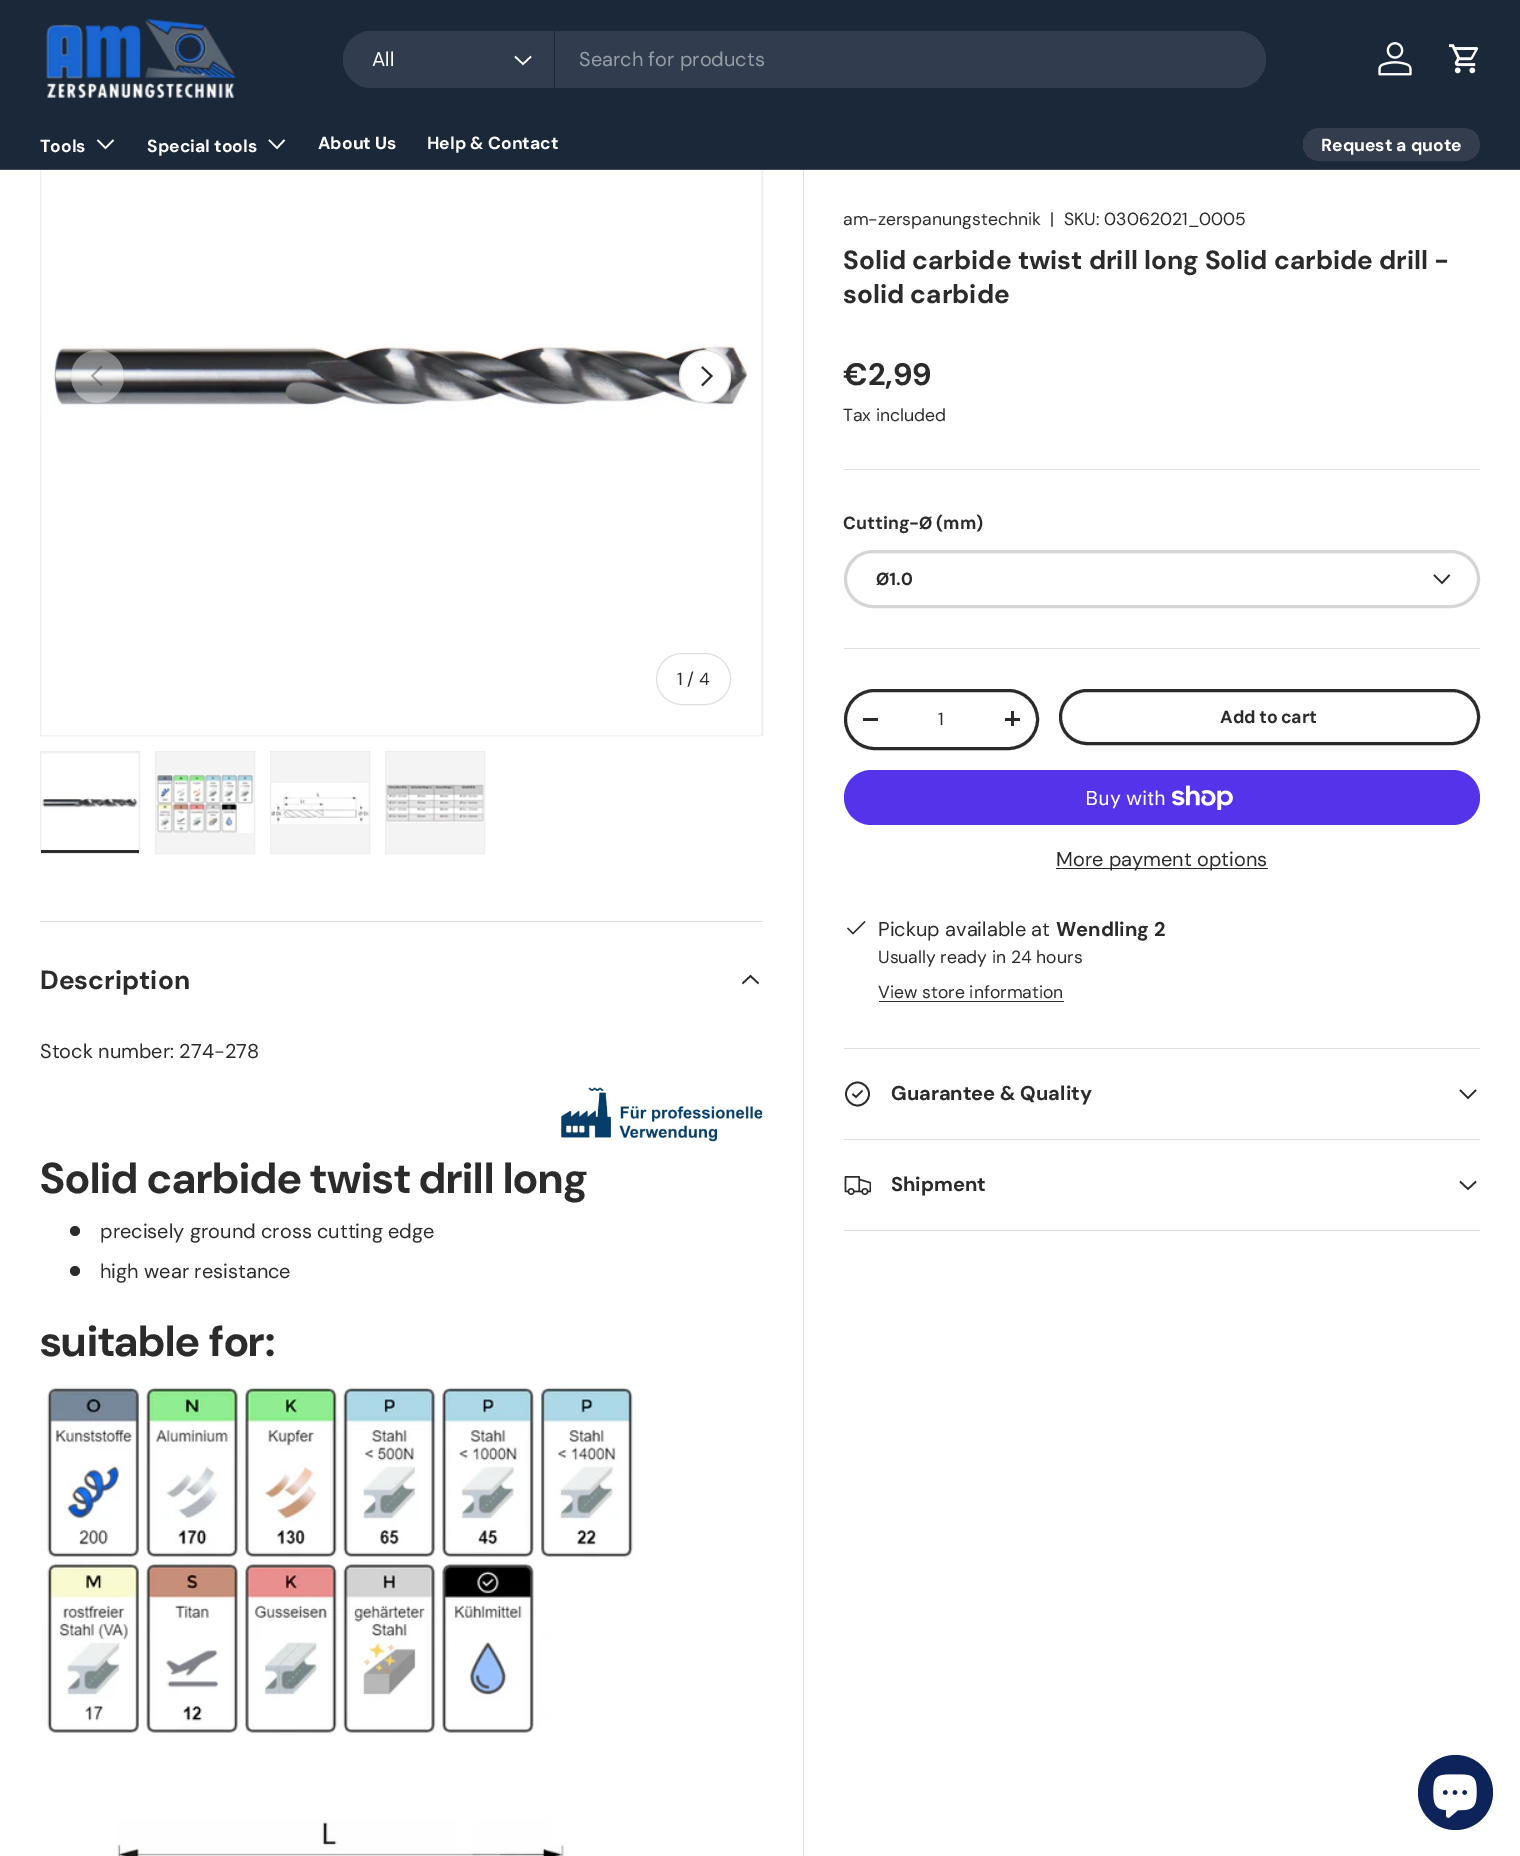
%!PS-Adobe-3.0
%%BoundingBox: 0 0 1520 1856
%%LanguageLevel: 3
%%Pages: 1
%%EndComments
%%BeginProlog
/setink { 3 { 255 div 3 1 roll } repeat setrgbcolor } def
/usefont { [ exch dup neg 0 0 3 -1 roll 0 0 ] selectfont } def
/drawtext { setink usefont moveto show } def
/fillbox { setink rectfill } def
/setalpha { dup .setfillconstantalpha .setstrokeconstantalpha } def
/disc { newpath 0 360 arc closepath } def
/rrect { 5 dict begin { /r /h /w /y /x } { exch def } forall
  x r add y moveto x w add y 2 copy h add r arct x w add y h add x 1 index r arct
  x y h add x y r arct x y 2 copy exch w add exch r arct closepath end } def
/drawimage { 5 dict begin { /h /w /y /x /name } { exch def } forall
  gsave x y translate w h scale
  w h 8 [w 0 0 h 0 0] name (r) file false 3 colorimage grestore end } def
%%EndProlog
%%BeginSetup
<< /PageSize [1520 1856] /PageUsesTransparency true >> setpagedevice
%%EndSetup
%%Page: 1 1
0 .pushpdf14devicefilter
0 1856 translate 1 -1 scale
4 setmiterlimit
0 0 1520 1856 255 255 255 fillbox
41 170 721 565 244 244 244 fillbox
238 238 238 setink
40.5 15.5 722 720 rectstroke
0 0 1520 169 26 40 58 fillbox
0 169 1520 1 60 72 88 fillbox
(assets/img1.rgb) 46 19 190 79 drawimage
49 61 78 setink
343 31 923 57 28.5 rrect fill
371.5 31 moveto 555 31 lineto 555 88 lineto 371.5 88 lineto 356 88 343 75 343 59.5 curveto 343 44 356 31 371.5 31 curveto closepath fill
554 31 1 57 26 40 58 fillbox
(All) 372 66 /DMSans-Regular 20 255 255 255 drawtext
1.6 setlinewidth
531 56.5 moveto 523 64 lineto 515 56.5 lineto stroke
(Search for products) 579 66 /DMSans-Regular 20 152 158 167 drawtext
(assets/img2.rgb) 1378 42 34 34 drawimage
(assets/img3.rgb) 1448 44 31 30 drawimage
(Tools) 40 152 /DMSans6-Bold 17.5 255 255 255 drawtext
113.5 140 moveto 105.5 148 lineto 97.5 140 lineto stroke
(Special tools) 147 152 /DMSans6-Bold 17.5 255 255 255 drawtext
284.5 140 moveto 277 148 lineto 269 140 lineto stroke
(About Us) 318 149 /DMSans6-Bold 17.5 255 255 255 drawtext
(Help & Contact) 427 149 /DMSans6-Bold 17.5 255 255 255 drawtext
gsave
1303 128 177 33 16.5 rrect clip newpath
gsave 1303 130 moveto 1478 130 lineto 1478 159 lineto 1303 159 lineto closepath clip newpath
<< /ShadingType 2 /ColorSpace /DeviceRGB /Coords [972 83 1466 206] /Extend [true true] /Function << /FunctionType 3 /Domain [0 1] /Functions [<< /FunctionType 2 /Domain [0 1] /C0 [0.349 0.38 0.443] /C1 [0.349 0.38 0.443] /N 1 >> << /FunctionType 2 /Domain [0 1] /C0 [0.2 0.239 0.302] /C1 [0.2 0.239 0.302] /N 1 >>] /Bounds [0.6] /Encode [0 1 0 1] >> >> shfill grestore
grestore
51 61 77 setink
3 setlinewidth
1304.5 129.5 174 30 15 rrect stroke
(Request a quote) 1321 151 /DMSans6-Bold 17.5 255 255 255 drawtext
40 921 723 1 223 223 223 fillbox
(Description) 40 989 /DMSans-Bold 26.25 42 43 42 drawtext
1.6 setlinewidth
758.5 983.5 moveto 750.5 976 lineto 742.5 983.5 lineto stroke
(Stock number: 274-278) 40 1058 /DMSans-Regular 20 42 43 42 drawtext
(assets/img4.rgb) 561 1087 202 55 drawimage
(Solid carbide twist drill long) 40 1193 /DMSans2-Bold 43.1 42 43 42 drawtext
75 1231 5 disc fill
(precisely ground cross cutting edge) 100 1238 /DMSans-Regular 20 42 43 42 drawtext
75 1271 5 disc fill
(high wear resistance) 100 1278 /DMSans-Regular 20 42 43 42 drawtext
(suitable for:) 40 1356 /DMSans2-Bold 43.1 42 43 42 drawtext
(assets/img5.rgb) 45 1385 590 350 drawimage
(assets/img6.rgb) 117 1819 447 37 drawimage
(assets/img7.rgb) 41 170 720 566 drawimage
0.4 setalpha
255 255 255 setink
97.5 376.5 26.5 disc fill
0.06 setalpha
42 43 42 setink
1 setlinewidth
71.5 350.5 52 52 rectstroke
0.4 setalpha
91 376 moveto 101 365.5 lineto 102.5 367 lineto 93.5 376 lineto 102.5 384.5 lineto 101 386 lineto closepath fill
1 setalpha
255 255 255 setink
679 350 52 53 26 rrect fill
0.15 setalpha
42 43 42 setink
679.5 350.5 51 52 25.5 rrect stroke
1 setalpha
1.9 setlinewidth
702 367 moveto 711.5 376 lineto 702 385.5 lineto stroke
223 223 223 setink
1 setlinewidth
656.5 653.5 74 51 25.5 rrect stroke
(1 / 4) 677 685 /DMSans2-Regular 17.6 42 43 42 drawtext
41 752 98 98 244 244 244 fillbox
238 238 238 setink
40.5 751.5 99 102 rectstroke
(assets/img8.rgb) 41 754 98 96 drawimage
41 850 98 3 42 43 42 fillbox
244 244 244 setink
155.5 751.5 moveto 254.5 751.5 lineto 254.5 853.5 lineto 155.5 853.5 lineto closepath gsave fill grestore
238 238 238 setink
stroke
(assets/img9.rgb) 156 774 98 59 drawimage
244 244 244 setink
270.5 751.5 moveto 369.5 751.5 lineto 369.5 853.5 lineto 270.5 853.5 lineto closepath gsave fill grestore
238 238 238 setink
stroke
(assets/img10.rgb) 271 783 98 41 drawimage
244 244 244 setink
385.5 751.5 moveto 484.5 751.5 lineto 484.5 853.5 lineto 385.5 853.5 lineto closepath gsave fill grestore
238 238 238 setink
stroke
(assets/img11.rgb) 386 784 98 39 drawimage
803 170 1 1686 223 223 223 fillbox
(am-zerspanungstechnik) 843 225 /DMSans2-Regular 17.6 42 43 42 drawtext
(|) 1050 225 /DMSans2-Regular 17.6 42 43 42 drawtext
(SKU: 03062021_0005) 1064 225 /DMSans2-Regular 17.6 42 43 42 drawtext
(Solid carbide twist drill long Solid carbide drill -) 843 269 /DMSans-Bold 26.25 42 43 42 drawtext
(solid carbide) 843 303 /DMSans-Bold 26.25 42 43 42 drawtext
(€2,99) 843 385 /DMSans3-Bold 31 42 43 42 drawtext
(Tax included) 843 421 /DMSans2-Regular 17.6 42 43 42 drawtext
844 469 636 1 223 223 223 fillbox
/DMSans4-Bold 17.6 usefont
42 43 42 setink
843 529 moveto -1 0 32 (Cutting-Ø \(mm\)) widthshow
212 213 212 setink
3 setlinewidth
845.5 551.5 633 55 27.5 rrect stroke
(Ø1.0) 876 585 /DMSans4-Bold 17.6 42 43 42 drawtext
1.6 setlinewidth
1449.5 575 moveto 1442 583 lineto 1434 575 lineto stroke
844 648 636 1 223 223 223 fillbox
42 43 42 setink
3 setlinewidth
845.5 690.5 192 58 29 rrect stroke
863 718 15 3 42 43 42 fillbox
(1) 938 725 /DMSans2-Regular 17.6 42 43 42 drawtext
1005 718 15 3 42 43 42 fillbox
1011 711 3 15 42 43 42 fillbox
1060.5 690.5 418 53 26.5 rrect stroke
/DMSans4-Bold 17.6 usefont
1220 723 moveto -1 0 32 (Add to cart) widthshow
84 51 235 setink
844 770 636 55 27.5 rrect fill
(Buy with) 1085 805 /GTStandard-Regular 20 255 255 255 drawtext
(assets/img12.rgb) 1171 785 62 25 drawimage
1056 868 212 1 42 43 42 fillbox
(More payment options) 1056 866 /DMSans-Regular 20 42 43 42 drawtext
864.5 921 moveto 865.5 922 lineto 853 934.5 lineto 847 928.5 lineto 848 927.5 lineto 853 932.5 lineto closepath fill
(Pickup available at) 878 936 /DMSans-Regular 20 42 43 42 drawtext
(Wendling 2) 1056 936 /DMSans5-Bold 20 42 43 42 drawtext
(Usually ready in 24 hours) 878 963 /DMSans2-Regular 17.6 42 43 42 drawtext
(View store information) 878 998 /DMSans2-Regular 17.6 42 43 42 drawtext
879 1001 185 1 42 43 42 fillbox
844 1048 636 1 223 223 223 fillbox
844 1139 636 1 223 223 223 fillbox
42 43 42 setink
1.7 setlinewidth
857.5 1094 11.5 disc stroke
862.5 1090.5 moveto 856 1097 lineto 852.5 1094 lineto stroke
(Guarantee & Quality) 891 1100 /DMSans5-Bold 20 42 43 42 drawtext
1.6 setlinewidth
1476 1090 moveto 1468 1098 lineto 1460 1090 lineto stroke
844 1230 636 1 223 223 223 fillbox
(assets/img13.rgb) 844 1176 27 19 drawimage
(Shipment) 891 1191 /DMSans5-Bold 20 42 43 42 drawtext
1476 1181.5 moveto 1468 1189 lineto 1460 1181.5 lineto stroke
13 35 89 setink
1455.5 1792.5 37.5 disc fill
(assets/img14.rgb) 1433 1774 44 44 drawimage
.poppdf14devicefilter showpage
%%EOF
